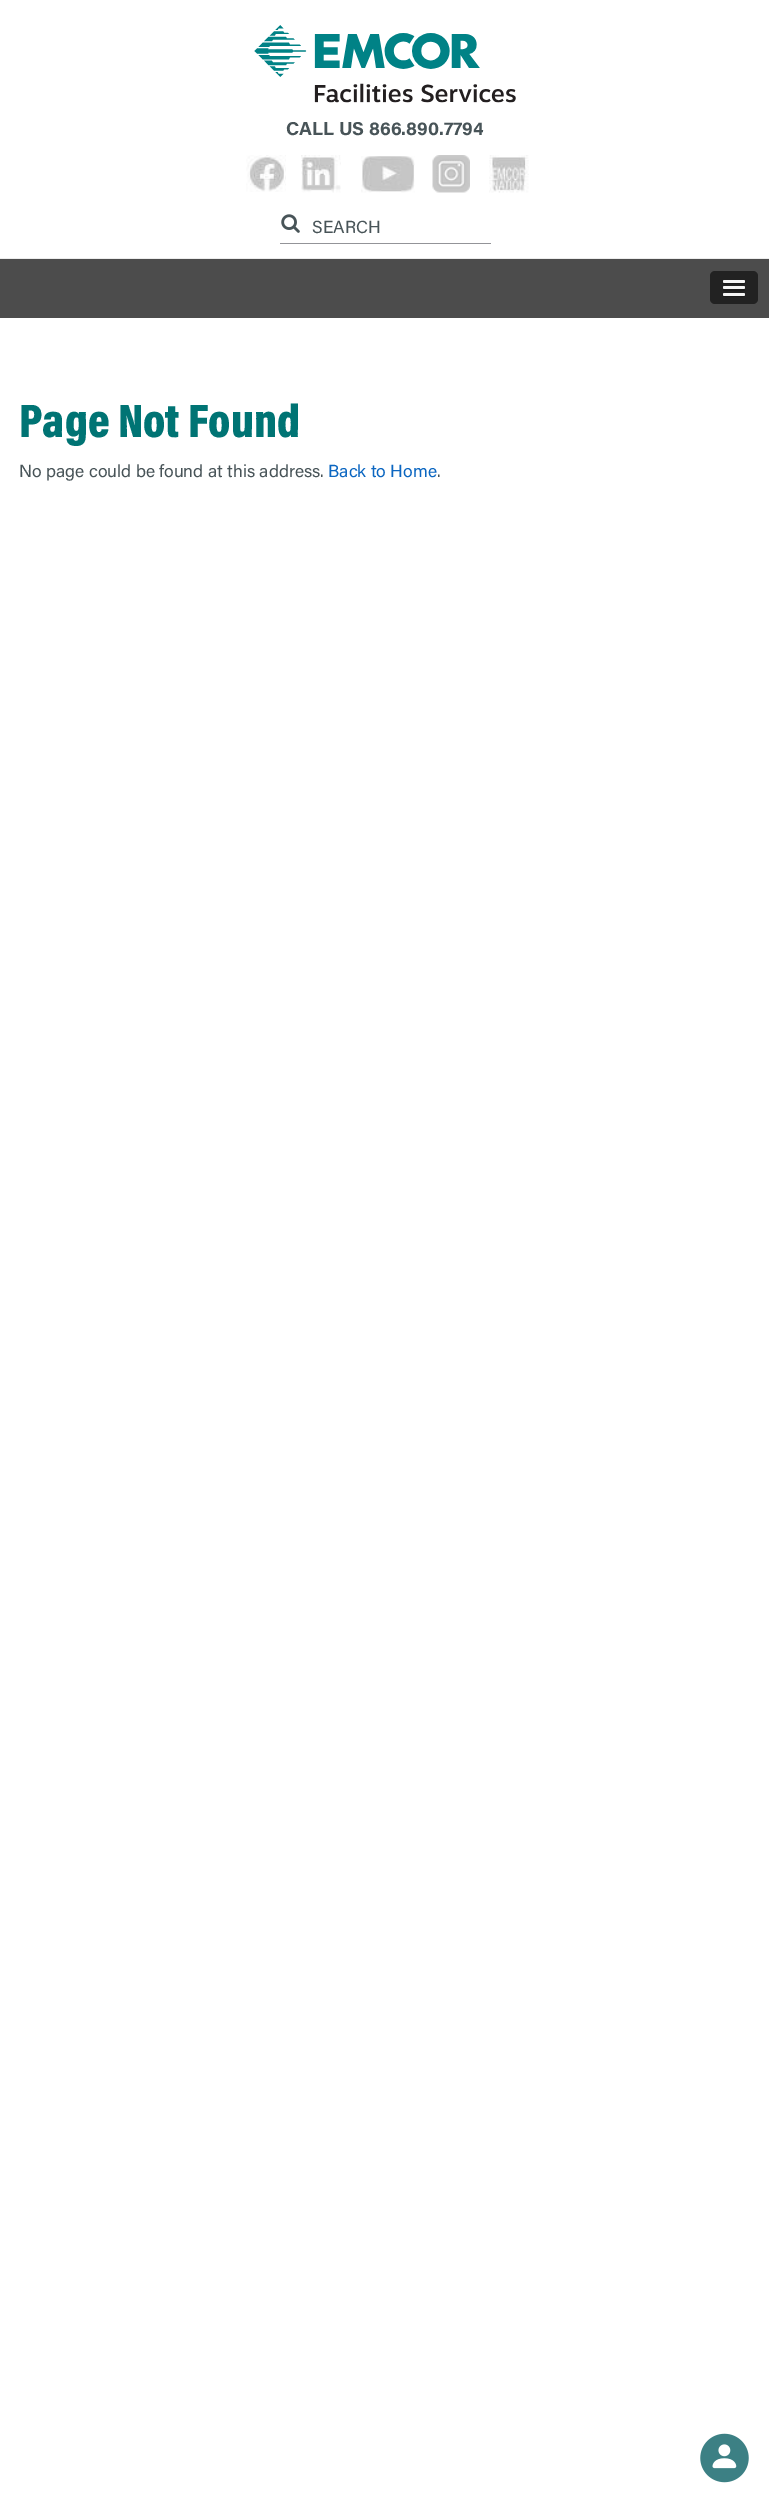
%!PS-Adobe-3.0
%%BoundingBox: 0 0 769 2506
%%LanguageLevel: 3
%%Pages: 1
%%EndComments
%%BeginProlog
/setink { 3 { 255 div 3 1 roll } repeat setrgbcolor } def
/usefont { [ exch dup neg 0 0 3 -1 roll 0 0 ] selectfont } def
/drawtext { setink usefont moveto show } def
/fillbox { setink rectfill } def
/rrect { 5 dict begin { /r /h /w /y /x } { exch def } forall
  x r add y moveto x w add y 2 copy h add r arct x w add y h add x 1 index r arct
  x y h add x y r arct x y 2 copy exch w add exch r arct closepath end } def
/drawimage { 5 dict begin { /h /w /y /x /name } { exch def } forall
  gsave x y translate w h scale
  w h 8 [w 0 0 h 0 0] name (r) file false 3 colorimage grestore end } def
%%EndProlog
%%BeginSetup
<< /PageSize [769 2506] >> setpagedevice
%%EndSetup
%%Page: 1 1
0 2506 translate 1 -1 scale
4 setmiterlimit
0 0 769 2506 255 255 255 fillbox
0 258 769 1 236 236 236 fillbox
(assets/img1.rgb) 254 25 262 78 drawimage
(CALL US 866.890.7794) 286 135 /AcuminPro-Bold 18.75 72 84 88 drawtext
(assets/img2.rgb) 246 155 40 37 drawimage
(assets/img3.rgb) 301 155 40 38 drawimage
(assets/img4.rgb) 361 156 54 37 drawimage
(assets/img5.rgb) 432 155 38 38 drawimage
(assets/img6.rgb) 489 155 40 38 drawimage
280 243 211 1 147 148 152 fillbox
(assets/img7.rgb) 281 214 19 19 drawimage
(SEARCH) 312 233 /AcuminPro-Regular 17.5 72 84 88 drawtext
0 259 769 59 76 76 76 fillbox
34 34 34 setink
710 271 48 33 5 rrect fill
26 26 26 setink
723 282.5 moveto 722.5 284.5 726.5 284 727.5 284 curveto 740.5 284 lineto 741 284 746 284.5 745 282 curveto 744 282.5 lineto 742 282.5 723.5 282.5 723 282.5 curveto closepath fill
245 245 245 setink
723 280 22 3 1.5 rrect fill
26 26 26 setink
723.5 288.5 moveto 721.5 291.5 727 291 727.5 291 curveto 734 291 lineto 736 291 744 291.5 744.5 290.5 curveto 745 289.5 745 289 744.5 288.5 curveto 744 289 724.5 289 723.5 288.5 curveto closepath fill
245 245 245 setink
723 286 22 3 1.5 rrect fill
26 26 26 setink
723 295 moveto 722 297.5 727 297 727.5 297 curveto 740.5 297 lineto 740.5 297 747 297.5 744.5 294.5 curveto 744 295 lineto closepath fill
245 245 245 setink
723 293 22 3 1.5 rrect fill
(Page Not Found) 19 437 /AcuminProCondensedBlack-Black 47.5 0 116 116 drawtext
(No page could be found at this address.) 19 477 /AcuminPro-Regular 17.5 72 84 88 drawtext
(Back to Home) 328 477 /AcuminPro-Regular 17.5 11 102 193 drawtext
(.) 437 477 /AcuminPro-Regular 17.5 72 84 88 drawtext
(assets/img8.rgb) 700 2433 49 50 drawimage
showpage
%%EOF
